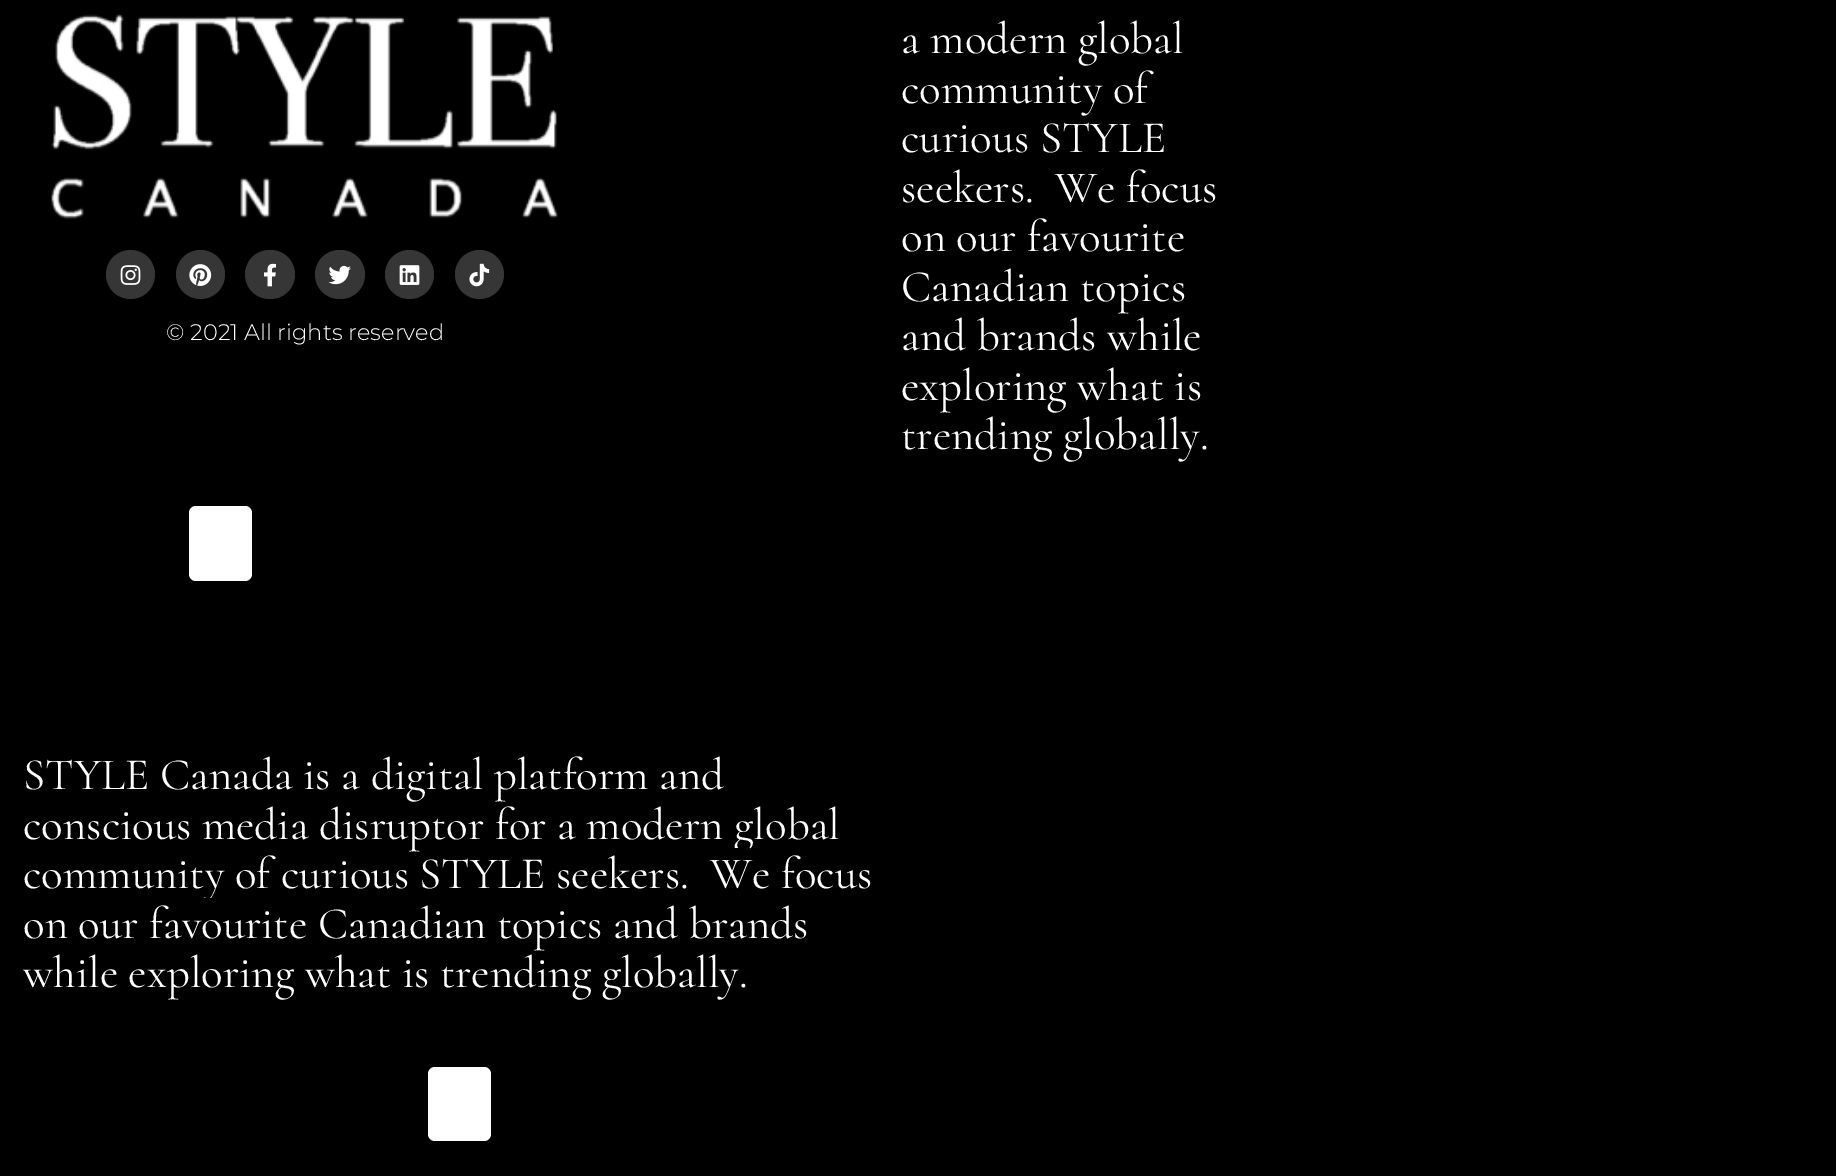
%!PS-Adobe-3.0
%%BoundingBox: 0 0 1836 1176
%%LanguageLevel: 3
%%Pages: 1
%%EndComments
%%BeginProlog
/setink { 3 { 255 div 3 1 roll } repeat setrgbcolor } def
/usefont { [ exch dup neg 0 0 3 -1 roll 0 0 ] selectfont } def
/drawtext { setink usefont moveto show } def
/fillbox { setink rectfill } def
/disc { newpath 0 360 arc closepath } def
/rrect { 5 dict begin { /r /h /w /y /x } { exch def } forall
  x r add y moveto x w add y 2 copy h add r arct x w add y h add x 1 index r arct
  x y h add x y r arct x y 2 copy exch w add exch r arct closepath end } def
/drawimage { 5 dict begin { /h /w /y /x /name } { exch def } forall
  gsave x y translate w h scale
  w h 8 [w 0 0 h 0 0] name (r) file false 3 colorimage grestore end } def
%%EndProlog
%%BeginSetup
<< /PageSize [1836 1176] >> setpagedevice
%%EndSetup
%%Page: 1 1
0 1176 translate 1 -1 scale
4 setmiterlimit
0 0 1836 1176 0 0 0 fillbox
(assets/img1.rgb) 51 14 507 206 drawimage
54 54 54 setink
130.5 274.5 24.5 disc fill
(assets/img2.rgb) 120 265 21 20 drawimage
200.5 274.5 24.5 disc fill
(assets/img3.rgb) 189 264 23 22 drawimage
245 250 50 49 24.5 rrect fill
(assets/img4.rgb) 264 263 12 24 drawimage
315 250 50 49 24.5 rrect fill
(assets/img5.rgb) 328 265 23 20 drawimage
409.5 274.5 24.5 disc fill
(assets/img6.rgb) 399 265 21 20 drawimage
479.5 274.5 24.5 disc fill
(assets/img7.rgb) 469 263 21 24 drawimage
(© 2021 All rights reserved) 166 340 /Montserrat-Light 22.5 255 255 255 drawtext
(a modern global) 901 53 /Cormorant-Regular 45 255 255 255 drawtext
(community of) 901 103 /Cormorant-Regular 45 255 255 255 drawtext
(curious STYLE) 901 152 /Cormorant-Regular 45 255 255 255 drawtext
(seekers.) 901 202 /Cormorant-Regular 45 255 255 255 drawtext
(We focus) 1055 202 /Cormorant-Regular 45 255 255 255 drawtext
(on our favourite) 901 251 /Cormorant-Regular 45 255 255 255 drawtext
(Canadian topics) 901 301 /Cormorant-Regular 45 255 255 255 drawtext
(and brands while) 901 350 /Cormorant-Regular 45 255 255 255 drawtext
(exploring what is) 901 400 /Cormorant-Regular 45 255 255 255 drawtext
(trending globally.) 901 449 /Cormorant-Regular 45 255 255 255 drawtext
189 506 63 75 7 rrect fill
(STYLE Canada is a digital platform and) 23 789 /Cormorant-Regular 45 255 255 255 drawtext
(conscious media disruptor for a modern global) 23 839 /Cormorant-Regular 45 255 255 255 drawtext
(community of curious STYLE seekers.) 23 888 /Cormorant-Regular 45 255 255 255 drawtext
(We focus) 710 888 /Cormorant-Regular 45 255 255 255 drawtext
734 848 16 4 0 0 0 fillbox
(on our favourite Canadian topics and brands) 23 938 /Cormorant-Regular 45 255 255 255 drawtext
202 898 9 3 0 0 0 fillbox
(while exploring what is trending globally.) 23 987 /Cormorant-Regular 45 255 255 255 drawtext
428 1067 63 74 7 rrect fill
showpage
%%EOF
